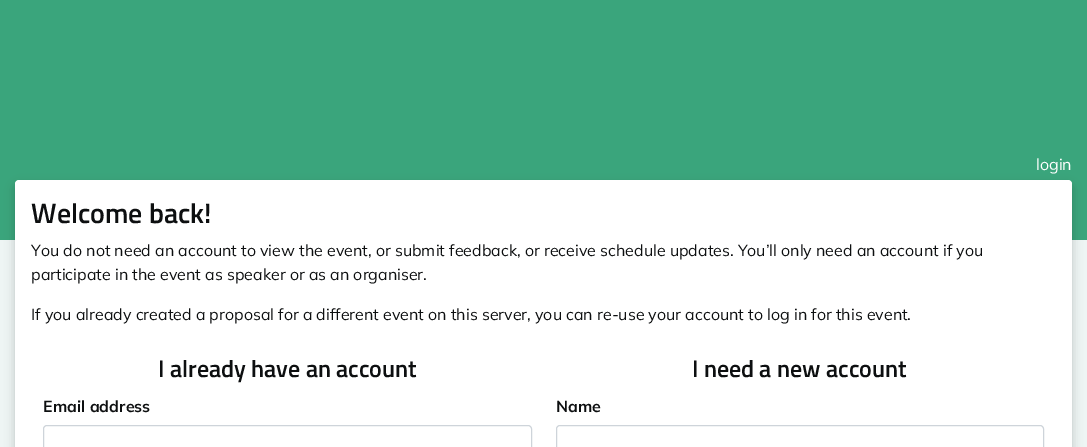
%!PS-Adobe-3.0
%%BoundingBox: 0 0 1087 447
%%LanguageLevel: 3
%%Pages: 1
%%EndComments
%%BeginProlog
/setink { 3 { 255 div 3 1 roll } repeat setrgbcolor } def
/usefont { [ exch dup neg 0 0 3 -1 roll 0 0 ] selectfont } def
/drawtext { setink usefont moveto show } def
/fillbox { setink rectfill } def
/setalpha { dup .setfillconstantalpha .setstrokeconstantalpha } def
/rrect { 5 dict begin { /r /h /w /y /x } { exch def } forall
  x r add y moveto x w add y 2 copy h add r arct x w add y h add x 1 index r arct
  x y h add x y r arct x y 2 copy exch w add exch r arct closepath end } def
/softshadow { 12 dict begin { /a /b /q /h /w /y /x } { exch def } forall gsave /was 0 def
  9 -2 -9 { dup b mul 4 div /e exch def 1 sub .425 mul 2.718 exch exp 1 add a .99 .min exch div /now exch def
    1 1 now sub 1 was sub div sub setalpha /was now def
    w h .min e 2 mul add 0 gt { x e sub y e sub w e 2 mul add h e 2 mul add
      q e add b .6 mul add w h .min 2 div e add .min 0 .max rrect fill } if } for grestore end } def
%%EndProlog
%%BeginSetup
<< /PageSize [1087 447] /PageUsesTransparency true >> setpagedevice
%%EndSetup
%%Page: 1 1
0 .pushpdf14devicefilter
0 447 translate 1 -1 scale
4 setmiterlimit
0 0 1087 447 238 245 244 fillbox
0 0 1087 240 58 165 124 fillbox
(login) 1036 170 /Mulish-ExtraLight 16 255 255 255 drawtext
0 0 0 setink
15 185 1057 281 4 5 0.2 softshadow
255 255 255 setink
15 180 1057 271 4 rrect fill
(Welcome back!) 31 223 /TitilliumWeb-SemiBold 28 13 15 16 drawtext
(You do not need an account to view the event, or submit feedback, or receive schedule updates. You’ll only need an account if you) 31 256 /Mulish-ExtraLight 16 13 15 16 drawtext
(participate in the event as speaker or as an organiser.) 31 280 /Mulish-ExtraLight 16 13 15 16 drawtext
(If you already created a proposal for a different event on this server, you can re-use your account to log in for this event.) 31 320 /Mulish-ExtraLight 16 13 15 16 drawtext
(I already have an account) 158 377 /TitilliumWeb-SemiBold 24 13 15 16 drawtext
(Email address) 43 412 /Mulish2-ExtraLight 16 13 15 16 drawtext
206 212 218 setink
43.5 425.5 488 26 3.5 rrect stroke
(I need a new account) 692 377 /TitilliumWeb-SemiBold 24 13 15 16 drawtext
(Name) 556 412 /Mulish2-ExtraLight 16 13 15 16 drawtext
206 212 218 setink
556.5 425.5 487 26 3.5 rrect stroke
.poppdf14devicefilter showpage
%%EOF
